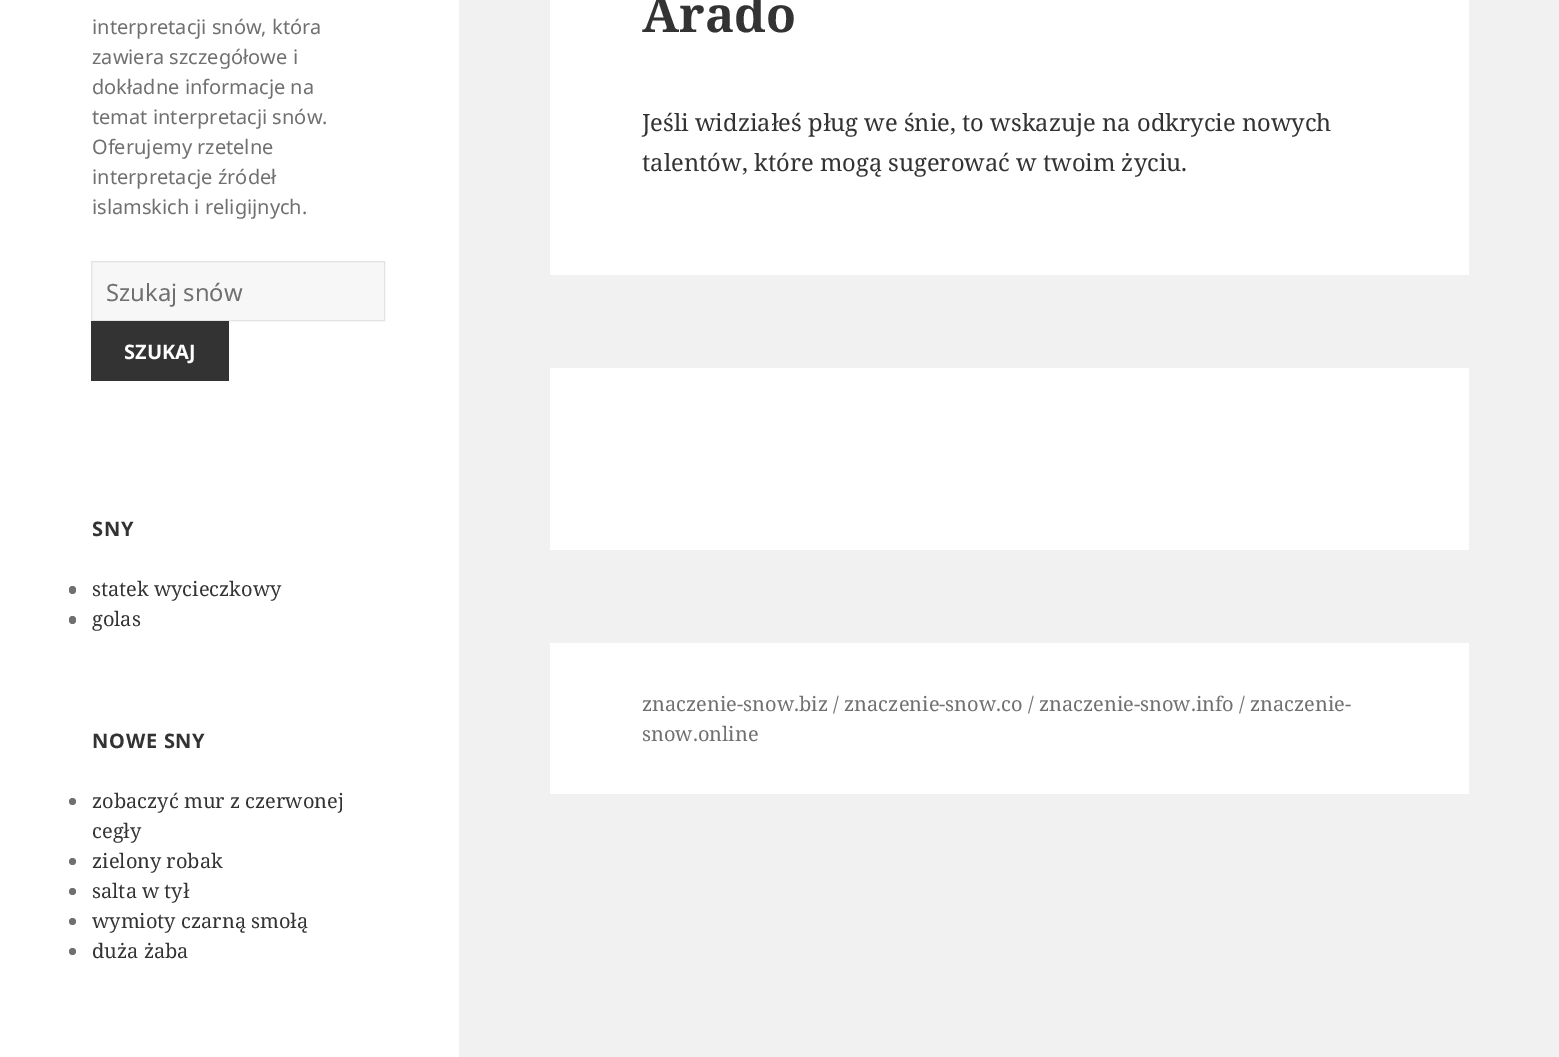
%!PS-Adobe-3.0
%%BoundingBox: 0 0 1559 1057
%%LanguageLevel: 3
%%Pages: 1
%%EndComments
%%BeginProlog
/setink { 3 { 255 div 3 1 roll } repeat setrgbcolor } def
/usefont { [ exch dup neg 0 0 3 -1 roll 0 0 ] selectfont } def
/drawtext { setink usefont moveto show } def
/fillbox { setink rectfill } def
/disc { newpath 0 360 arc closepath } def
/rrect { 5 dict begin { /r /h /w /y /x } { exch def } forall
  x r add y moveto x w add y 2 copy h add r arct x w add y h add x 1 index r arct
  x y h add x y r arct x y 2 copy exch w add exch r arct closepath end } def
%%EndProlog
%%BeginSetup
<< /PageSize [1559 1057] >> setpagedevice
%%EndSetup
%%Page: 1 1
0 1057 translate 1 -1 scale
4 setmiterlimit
0 0 1559 1057 241 241 241 fillbox
0 0 459 1057 255 255 255 fillbox
(interpretacji snów, która) 92 34 /NotoSans-Regular 20 112 112 112 drawtext
(zawiera szczegółowe i) 92 64 /NotoSans-Regular 20 112 112 112 drawtext
(dokładne informacje na) 92 94 /NotoSans-Regular 20 112 112 112 drawtext
(temat interpretacji snów.) 92 124 /NotoSans-Regular 20 112 112 112 drawtext
(Oferujemy rzetelne) 92 154 /NotoSans-Regular 20 112 112 112 drawtext
(interpretacje źródeł) 92 184 /NotoSans-Regular 20 112 112 112 drawtext
(islamskich i religijnych.) 92 214 /NotoSans-Regular 20 112 112 112 drawtext
247 247 247 setink
91.5 261.5 moveto 384.5 261.5 lineto 384.5 320.5 lineto 91.5 320.5 lineto closepath gsave fill grestore
227 227 227 setink
stroke
(Szukaj snów) 106 301 /NotoSans-Regular 23.75 112 112 112 drawtext
91 321 138 60 51 51 51 fillbox
(SZUKAJ) 124 359 /NotoSans-Bold 20 255 255 255 drawtext
51 51 51 setink
92 536 moveto 0.75 0 (SNY) ashow
112 112 112 setink
69 586 7 8 3.5 rrect fill
(statek wycieczkowy) 92 596 /NotoSerif-Regular 20 51 51 51 drawtext
112 112 112 setink
69 616 7 8 3.5 rrect fill
(golas) 92 626 /NotoSerif-Regular 20 51 51 51 drawtext
/NotoSans-Bold 20 usefont
92 748 moveto 0.75 0 (NOWE SNY) ashow
112 112 112 setink
72.5 801.5 3.5 disc fill
(zobaczyć mur z czerwonej) 92 808 /NotoSerif-Regular 20 51 51 51 drawtext
(cegły) 92 838 /NotoSerif-Regular 20 51 51 51 drawtext
112 112 112 setink
72.5 861.5 3.5 disc fill
(zielony robak) 92 868 /NotoSerif-Regular 20 51 51 51 drawtext
112 112 112 setink
72.5 891.5 3.5 disc fill
(salta w tył) 92 898 /NotoSerif-Regular 20 51 51 51 drawtext
112 112 112 setink
72.5 921.5 3.5 disc fill
(wymioty czarną smołą) 92 928 /NotoSerif-Regular 20 51 51 51 drawtext
112 112 112 setink
72.5 951.5 3.5 disc fill
(duża żaba) 92 958 /NotoSerif-Regular 20 51 51 51 drawtext
550 0 919 275 255 255 255 fillbox
(Arado) 642 32 /NotoSerif-Bold 49 51 51 51 drawtext
(Jeśli widziałeś pług we śnie, to wskazuje na odkrycie nowych) 642 131 /NotoSerif-Regular 23.75 51 51 51 drawtext
(talentów, które mogą sugerować w twoim życiu.) 642 171 /NotoSerif-Regular 23.75 51 51 51 drawtext
550 368 919 182 255 255 255 fillbox
550 643 919 151 255 255 255 fillbox
(znaczenie-snow.biz / znaczenie-snow.co / znaczenie-snow.info / znaczenie-) 642 711 /NotoSerif-Regular 20 112 112 112 drawtext
(snow.online) 642 741 /NotoSerif-Regular 20 112 112 112 drawtext
showpage
%%EOF
